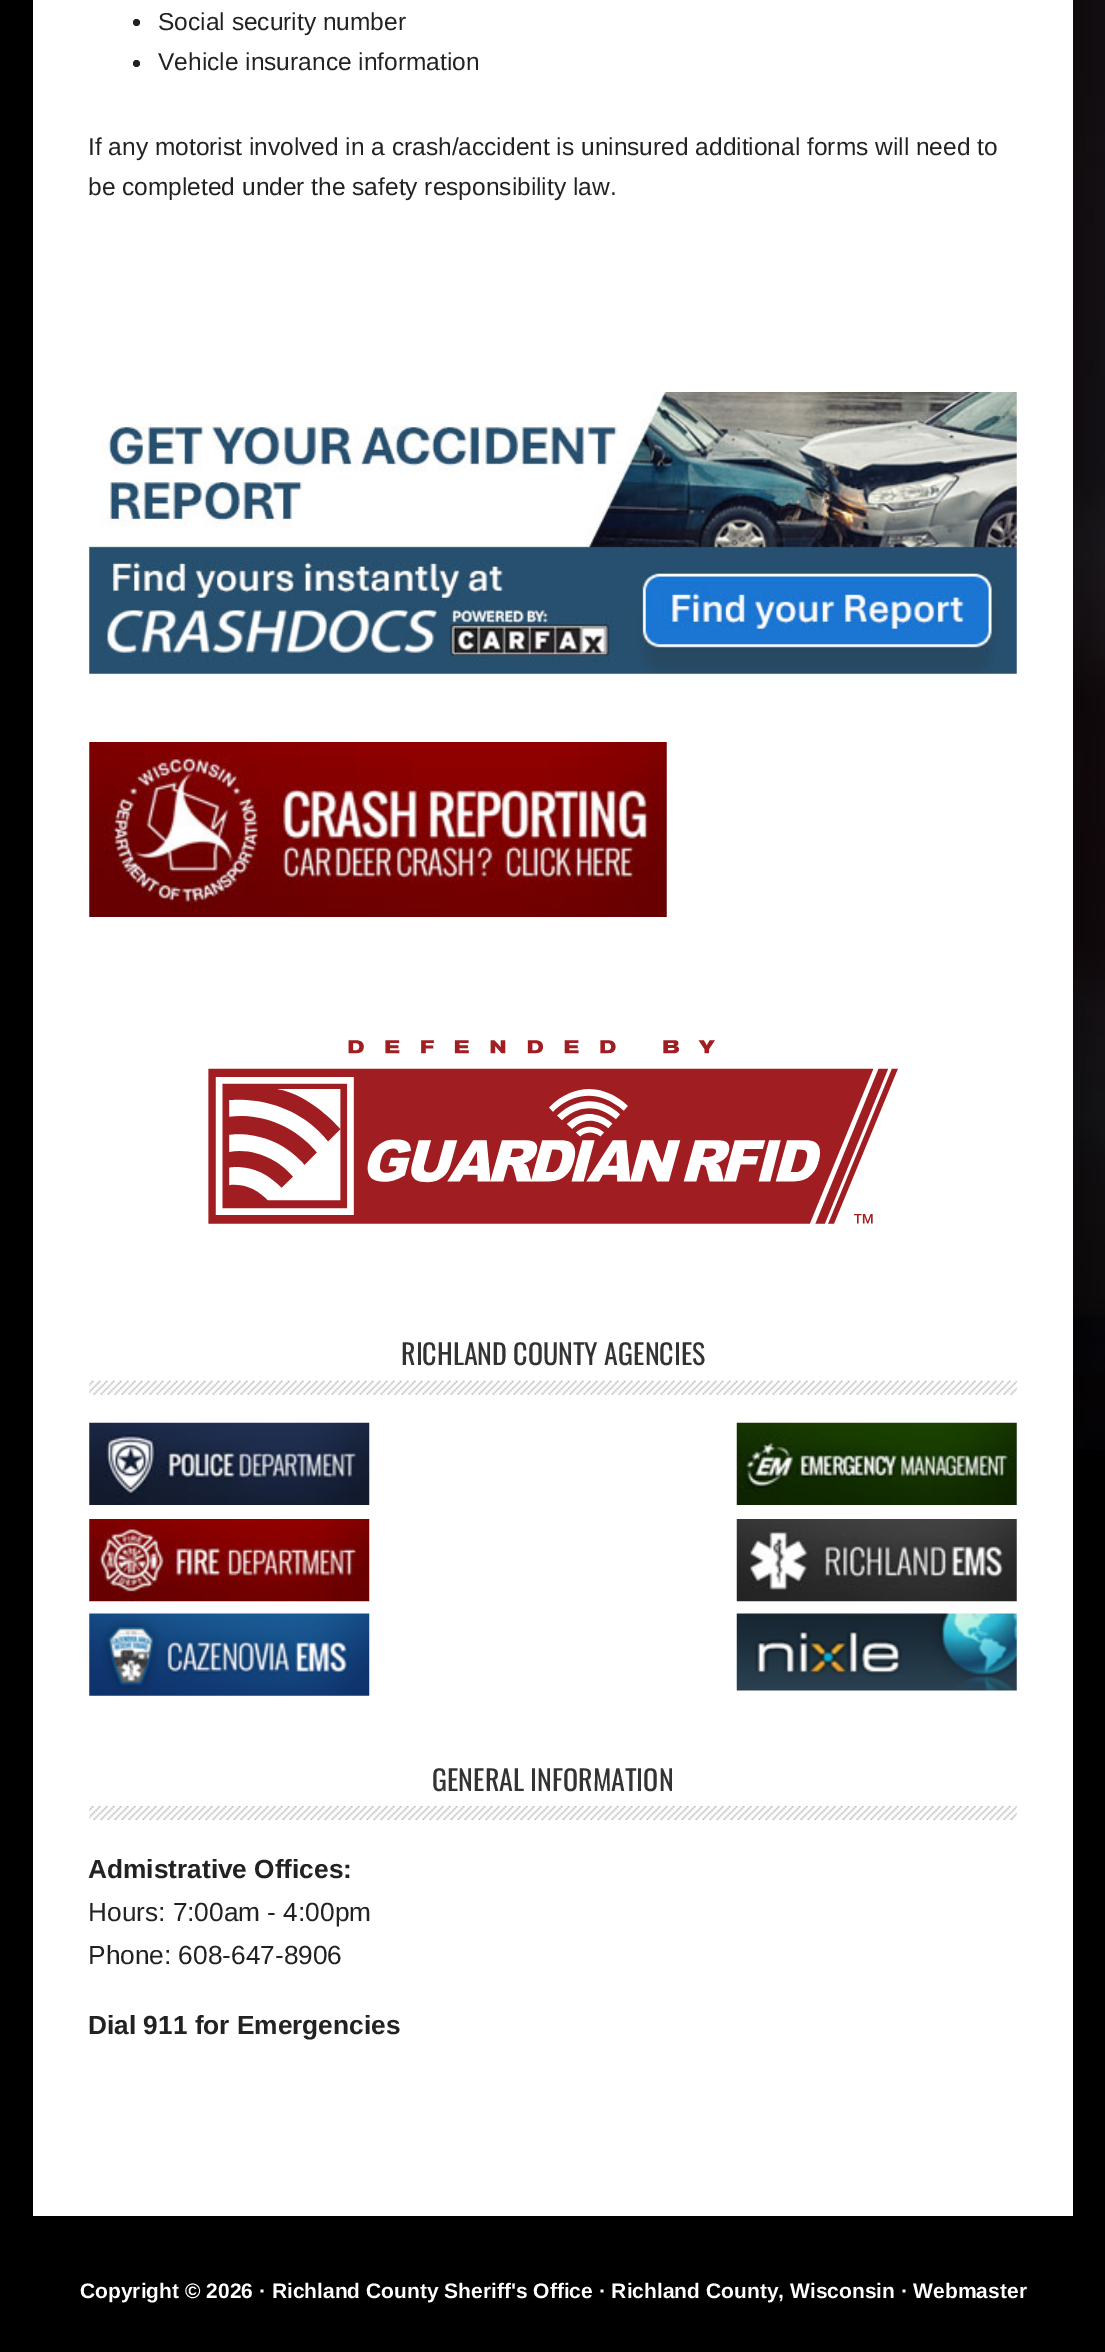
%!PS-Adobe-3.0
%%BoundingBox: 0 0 1105 2352
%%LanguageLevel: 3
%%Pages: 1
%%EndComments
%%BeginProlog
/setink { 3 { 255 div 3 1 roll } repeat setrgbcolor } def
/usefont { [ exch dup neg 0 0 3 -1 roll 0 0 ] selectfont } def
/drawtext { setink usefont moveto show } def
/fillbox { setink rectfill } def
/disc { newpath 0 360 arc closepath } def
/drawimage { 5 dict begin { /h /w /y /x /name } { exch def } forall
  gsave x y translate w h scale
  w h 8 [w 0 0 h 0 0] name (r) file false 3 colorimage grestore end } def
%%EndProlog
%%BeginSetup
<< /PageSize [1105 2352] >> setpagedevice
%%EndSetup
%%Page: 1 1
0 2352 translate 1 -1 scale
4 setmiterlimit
0 0 1105 2352 0 0 0 fillbox
33 0 1040 2216 255 255 255 fillbox
34 34 34 setink
136.5 22.5 3.5 disc fill
(Social security number) 158 30 /LiberationSans-Regular 24.5 34 34 34 drawtext
136.5 63.5 3.5 disc fill
(Vehicle insurance information) 158 70 /LiberationSans-Regular 24.5 34 34 34 drawtext
(If any motorist involved in a crash/accident is uninsured additional forms will need to) 88 155 /LiberationSans-Regular 24.5 34 34 34 drawtext
(be completed under the safety responsibility law.) 88 195 /LiberationSans-Regular 24.5 34 34 34 drawtext
(assets/img1.rgb) 89 392 928 282 drawimage
(assets/img2.rgb) 89 742 578 175 drawimage
(assets/img3.rgb) 208 1040 690 184 drawimage
(assets/img4.rgb) 89 1380 928 15 drawimage
(RICHLAND COUNTY AGENCIES) 401 1365 /Oswald-Regular 28 51 51 51 drawtext
(assets/img5.rgb) 89 1422 281 83 drawimage
(assets/img6.rgb) 736 1422 281 83 drawimage
(assets/img7.rgb) 89 1519 281 83 drawimage
(assets/img8.rgb) 736 1519 281 83 drawimage
(assets/img9.rgb) 89 1613 281 83 drawimage
(assets/img10.rgb) 736 1613 281 78 drawimage
(assets/img11.rgb) 89 1806 928 14 drawimage
(GENERAL INFORMATION) 432 1791 /Oswald-Regular 28 51 51 51 drawtext
(Admistrative Offices:) 88 1878 /LiberationSans-Bold 26.25 34 34 34 drawtext
(Hours: 7:00am - 4:00pm) 88 1921 /LiberationSans-Regular 26.25 34 34 34 drawtext
(Phone: 608-647-8906) 88 1964 /LiberationSans-Regular 26.25 34 34 34 drawtext
(Dial 911 for Emergencies) 88 2034 /LiberationSans-Bold 26.25 34 34 34 drawtext
(assets/img12.rgb) 1073 0 32 1450 drawimage
(Copyright © 2026 · Richland County Sheriff's Office · Richland County, Wisconsin · Webmaster) 80 2298 /LiberationSans-Bold 21 255 255 255 drawtext
showpage
%%EOF
